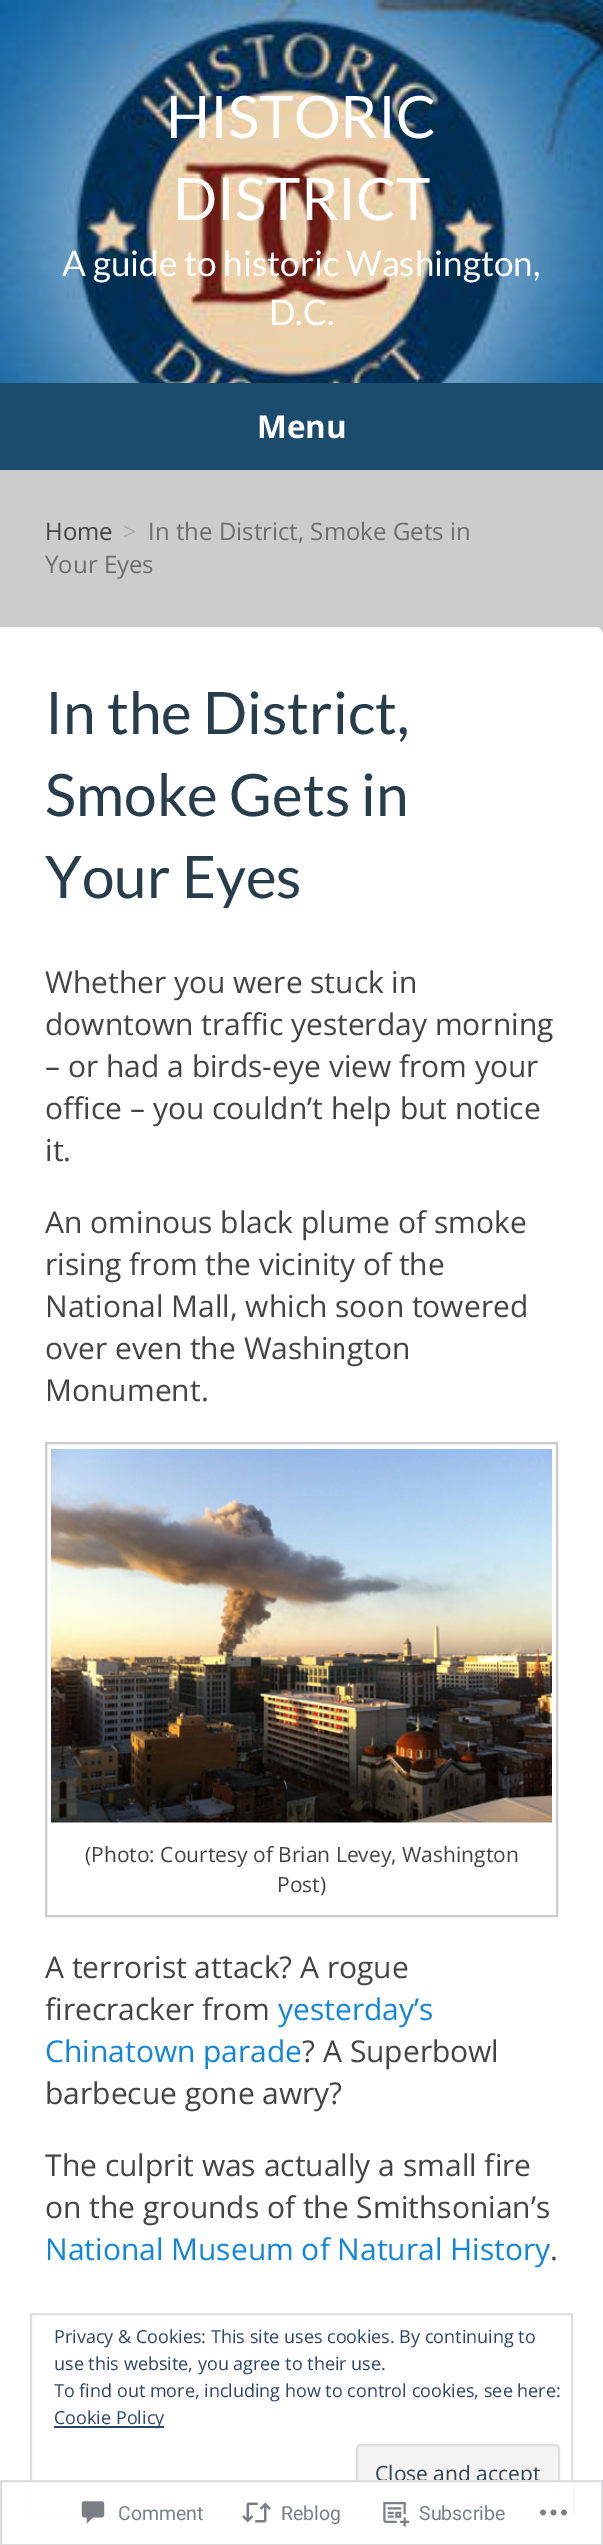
%!PS-Adobe-3.0
%%BoundingBox: 0 0 603 2545
%%LanguageLevel: 3
%%Pages: 1
%%EndComments
%%BeginProlog
/setink { 3 { 255 div 3 1 roll } repeat setrgbcolor } def
/usefont { [ exch dup neg 0 0 3 -1 roll 0 0 ] selectfont } def
/drawtext { setink usefont moveto show } def
/fillbox { setink rectfill } def
/setalpha { dup .setfillconstantalpha .setstrokeconstantalpha } def
/rrect { 5 dict begin { /r /h /w /y /x } { exch def } forall
  x r add y moveto x w add y 2 copy h add r arct x w add y h add x 1 index r arct
  x y h add x y r arct x y 2 copy exch w add exch r arct closepath end } def
/drawimage { 5 dict begin { /h /w /y /x /name } { exch def } forall
  gsave x y translate w h scale
  w h 8 [w 0 0 h 0 0] name (r) file false 3 colorimage grestore end } def
%%EndProlog
%%BeginSetup
<< /PageSize [603 2545] /PageUsesTransparency true >> setpagedevice
%%EndSetup
%%Page: 1 1
0 .pushpdf14devicefilter
0 2545 translate 1 -1 scale
4 setmiterlimit
0 0 603 2545 204 204 204 fillbox
(assets/img1.rgb) 0 0 603 383 drawimage
(HISTORIC) 166 138 /Lato-Regular 58.5 255 255 255 drawtext
(DISTRICT) 173 220 /Lato-Regular 58.5 255 255 255 drawtext
(A guide to historic Washington,) 62 276 /Lato-Regular 35.1 255 255 255 drawtext
(D.C.) 269 325 /Lato-Regular 35.1 255 255 255 drawtext
0 383 603 87 27 75 109 fillbox
(Menu) 257 438 /OpenSans-Bold 31.5 255 255 255 drawtext
(Home) 45 540 /OpenSans-Regular 24 68 68 68 drawtext
(>) 123 540 /OpenSans-Regular 24 171 171 171 drawtext
(In the District, Smoke Gets in) 148 540 /OpenSans-Regular 24 109 109 109 drawtext
(Your Eyes) 45 573 /OpenSans-Regular 24 109 109 109 drawtext
255 255 255 setink
0 627 moveto 595 627 lineto 599.5 627 603 630.5 603 635 curveto 603 2545 lineto 603 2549.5 599.5 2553 595 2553 curveto 0 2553 lineto closepath fill
(In the District,) 45 734 /Lato-Regular 58.5 40 61 75 drawtext
(Smoke Gets in) 45 816 /Lato-Regular 58.5 40 61 75 drawtext
(Your Eyes) 45 898 /Lato-Regular 58.5 40 61 75 drawtext
(Whether you were stuck in) 45 993 /OpenSans-Regular 30 68 68 68 drawtext
(downtown traffic yesterday morning) 45 1035 /OpenSans-Regular 30 68 68 68 drawtext
(– or had a birds-eye view from your) 45 1077 /OpenSans-Regular 30 68 68 68 drawtext
(office – you couldn’t help but notice) 45 1119 /OpenSans-Regular 30 68 68 68 drawtext
(it.) 45 1161 /OpenSans-Regular 30 68 68 68 drawtext
(An ominous black plume of smoke) 45 1233 /OpenSans-Regular 30 68 68 68 drawtext
(rising from the vicinity of the) 45 1275 /OpenSans-Regular 30 68 68 68 drawtext
(National Mall, which soon towered) 45 1317 /OpenSans-Regular 30 68 68 68 drawtext
(over even the Washington) 45 1359 /OpenSans-Regular 30 68 68 68 drawtext
(Monument.) 45 1401 /OpenSans-Regular 30 68 68 68 drawtext
204 204 204 setink
2 setlinewidth
46 1443 511 473 rectstroke
(assets/img2.rgb) 51 1449 501 374 drawimage
(\(Photo: Courtesy of Brian Levey, Washington) 85 1862 /OpenSans-Regular 21 68 68 68 drawtext
(Post\)) 277 1892 /OpenSans-Regular 21 68 68 68 drawtext
(A terrorist attack? A rogue) 45 1978 /OpenSans-Regular 30 68 68 68 drawtext
(firecracker from) 45 2020 /OpenSans-Regular 30 68 68 68 drawtext
(yesterday’s) 278 2020 /OpenSans-Regular 30 17 133 215 drawtext
(Chinatown parade) 45 2062 /OpenSans-Regular 30 17 133 215 drawtext
(? A Superbowl) 302 2062 /OpenSans-Regular 30 68 68 68 drawtext
(barbecue gone awry?) 45 2104 /OpenSans-Regular 30 68 68 68 drawtext
(The culprit was actually a small fire) 45 2176 /OpenSans-Regular 30 68 68 68 drawtext
(on the grounds of the Smithsonian’s) 45 2218 /OpenSans-Regular 30 68 68 68 drawtext
(National Museum of Natural History) 45 2260 /OpenSans-Regular 30 17 133 215 drawtext
(.) 550 2260 /OpenSans-Regular 30 68 68 68 drawtext
222 222 222 setink
31 2314 541 201 rectstroke
(Privacy & Cookies: This site uses cookies. By continuing to) 54 2343 /OpenSans-Regular 18 46 68 103 drawtext
(use this website, you agree to their use.) 54 2370 /OpenSans-Regular 18 46 68 103 drawtext
(To find out more, including how to control cookies, see here:) 54 2397 /OpenSans-Regular 18 46 68 103 drawtext
54 2426 110 2 46 68 103 fillbox
(Cookie Policy) 54 2424 /OpenSans-Regular 18 46 68 103 drawtext
243 243 243 setink
357 2445 202 56 4 rrect gsave fill grestore
222 222 222 setink
stroke
(Close and accept) 375 2481 /OpenSans-Regular 21 46 68 83 drawtext
0.98 setalpha
30 2480 543 36 255 255 255 fillbox
220 220 222 setink
1 2481 601 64 rectstroke
1 setalpha
(assets/img3.rgb) 81 2501 24 23 drawimage
(Comment) 118 2520 /Roboto-Regular 19.5 123 127 132 drawtext
(assets/img4.rgb) 242 2502 29 21 drawimage
(Reblog) 281 2520 /Roboto-Regular 19.5 123 127 132 drawtext
(assets/img5.rgb) 383 2502 27 25 drawimage
(Subscribe) 419 2520 /Roboto-Regular 19.5 123 127 132 drawtext
(assets/img6.rgb) 540 2509 27 7 drawimage
.poppdf14devicefilter showpage
%%EOF
